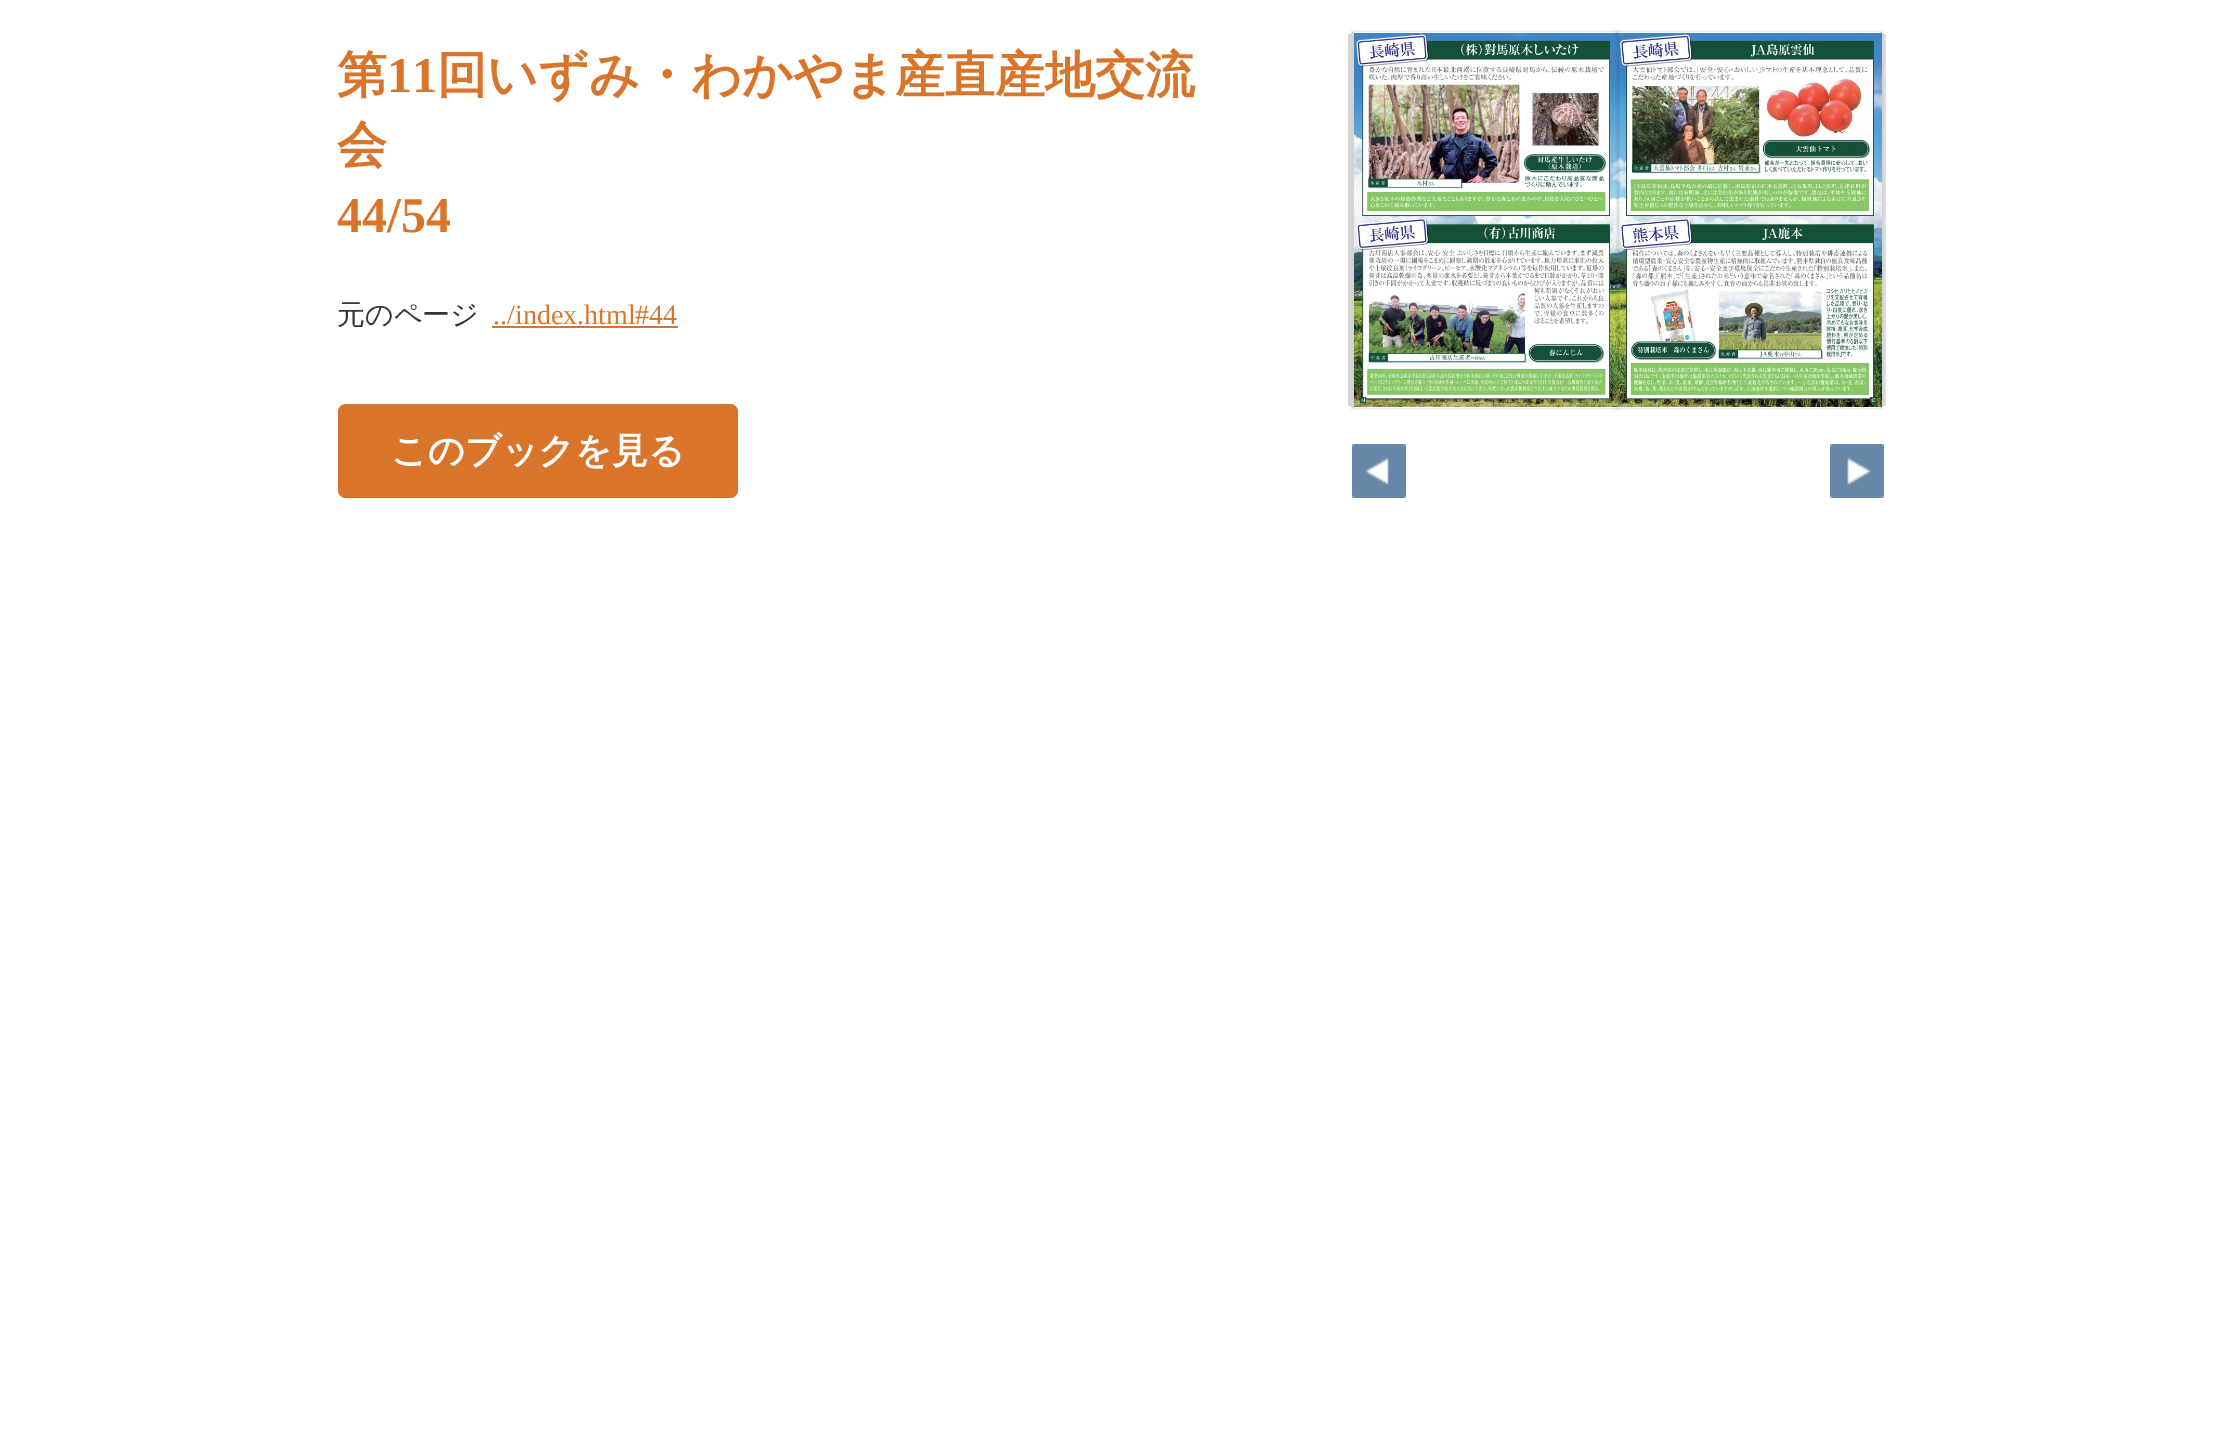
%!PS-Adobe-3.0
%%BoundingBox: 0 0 2234 1429
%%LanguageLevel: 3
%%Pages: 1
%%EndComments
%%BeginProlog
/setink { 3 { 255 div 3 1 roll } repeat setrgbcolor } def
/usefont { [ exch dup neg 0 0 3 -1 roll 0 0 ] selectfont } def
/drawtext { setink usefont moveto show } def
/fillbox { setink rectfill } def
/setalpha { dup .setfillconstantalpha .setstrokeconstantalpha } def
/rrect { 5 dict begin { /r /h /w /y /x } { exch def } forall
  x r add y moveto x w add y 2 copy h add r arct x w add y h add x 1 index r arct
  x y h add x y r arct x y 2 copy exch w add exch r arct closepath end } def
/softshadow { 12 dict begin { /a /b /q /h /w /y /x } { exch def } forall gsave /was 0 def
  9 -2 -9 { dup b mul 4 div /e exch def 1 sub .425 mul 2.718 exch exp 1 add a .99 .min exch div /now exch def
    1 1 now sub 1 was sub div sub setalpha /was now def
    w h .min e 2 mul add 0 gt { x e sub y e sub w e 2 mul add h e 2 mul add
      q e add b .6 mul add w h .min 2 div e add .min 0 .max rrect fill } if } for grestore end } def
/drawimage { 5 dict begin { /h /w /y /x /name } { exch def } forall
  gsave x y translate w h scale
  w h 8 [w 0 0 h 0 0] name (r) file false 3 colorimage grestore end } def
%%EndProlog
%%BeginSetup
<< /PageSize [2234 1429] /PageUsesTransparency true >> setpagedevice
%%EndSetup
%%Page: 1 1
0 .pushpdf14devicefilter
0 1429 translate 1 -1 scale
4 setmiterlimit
0 0 2234 1429 255 255 255 fillbox
(第) 337 92 /WenQuanYiZenHei-Bold 50 217 117 43 drawtext
(11) 387 92 /LiberationSerif-Bold 50 217 117 43 drawtext
(回いずみ・わかやま産直産地交流) 437 92 /WenQuanYiZenHei-Bold 50 217 117 43 drawtext
(会) 337 162 /WenQuanYiZenHei-Bold 50 217 117 43 drawtext
(44/54) 337 232 /LiberationSerif-Bold 50 217 117 43 drawtext
(元のページ) 337 324 /WenQuanYiZenHei-Medium 28 51 51 51 drawtext
(../index.html#44) 493 324 /LiberationSerif-Regular 28 217 117 43 drawtext
492 326 186 2 217 117 43 fillbox
338 404 400 94 8 rrect fill
(このブックを見る) 391 463 /WenQuanYiZenHei-Bold 36 255 255 255 drawtext
0 0 0 setink
1352 32 266 376 0 1.5 0.2 softshadow
1354 32 264 376 253 253 253 fillbox
210 210 210 setink
0.6 setlinewidth
1352.3 32.3 1.4 375.4 rectstroke
1348.3 34.3 1.4 371.4 rectstroke
1352.3 32.3 1.4 375.4 rectstroke
1348.3 34.3 1.4 371.4 rectstroke
1350.3 34.3 1.4 371.4 rectstroke
1350.3 34.3 1.4 371.4 rectstroke
0 0 0 setink
1616 32 266 376 0 1.5 0.2 softshadow
1618 32 262 376 253 253 253 fillbox
210 210 210 setink
1880.3 32.3 1.4 375.4 rectstroke
1880.3 32.3 1.4 375.4 rectstroke
1882.3 34.3 1.4 371.4 rectstroke
1882.3 34.3 1.4 371.4 rectstroke
1884.3 34.3 1.4 371.4 rectstroke
(assets/img1.rgb) 1354 33 264 374 drawimage
(assets/img2.rgb) 1615 33 3 375 drawimage
(assets/img4.rgb) 1618 33 264 374 drawimage
(assets/img3.rgb) 1618 32 2 376 drawimage
(assets/img5.rgb) 1352 444 54 54 drawimage
(assets/img6.rgb) 1830 444 54 54 drawimage
.poppdf14devicefilter showpage
%%EOF
